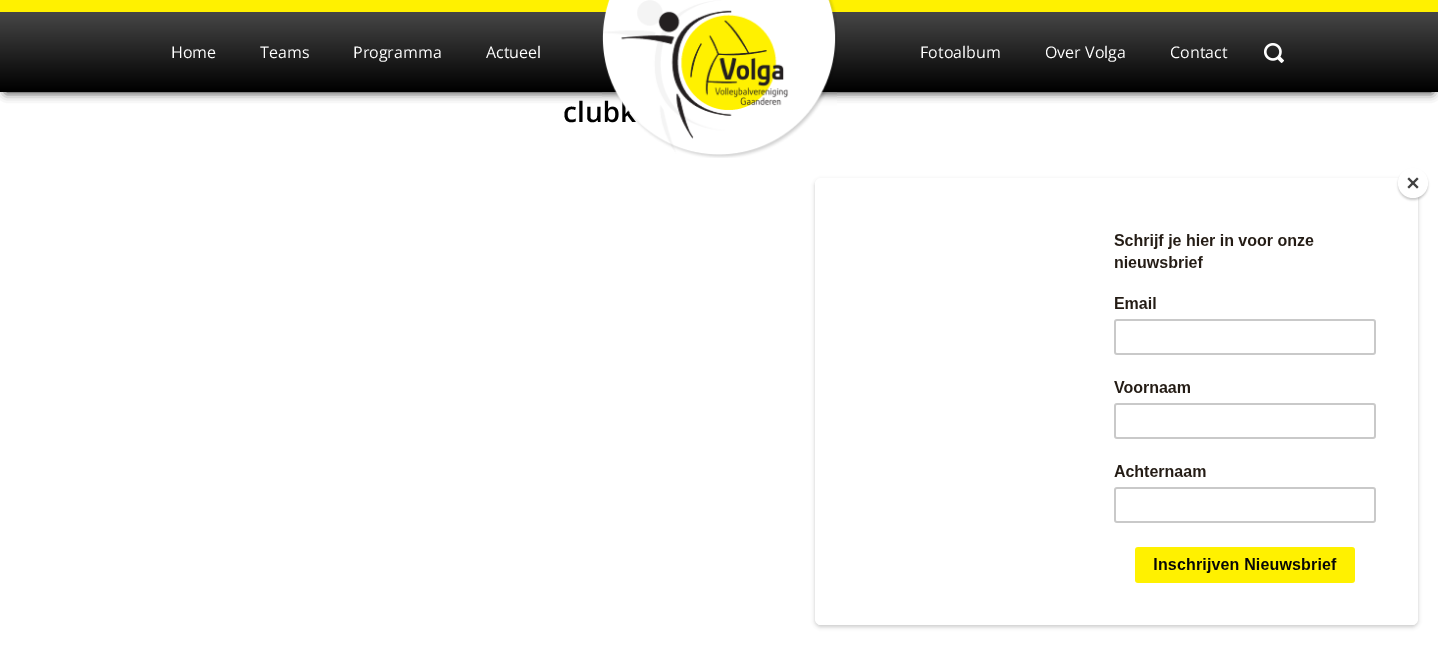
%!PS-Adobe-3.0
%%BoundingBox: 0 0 1438 645
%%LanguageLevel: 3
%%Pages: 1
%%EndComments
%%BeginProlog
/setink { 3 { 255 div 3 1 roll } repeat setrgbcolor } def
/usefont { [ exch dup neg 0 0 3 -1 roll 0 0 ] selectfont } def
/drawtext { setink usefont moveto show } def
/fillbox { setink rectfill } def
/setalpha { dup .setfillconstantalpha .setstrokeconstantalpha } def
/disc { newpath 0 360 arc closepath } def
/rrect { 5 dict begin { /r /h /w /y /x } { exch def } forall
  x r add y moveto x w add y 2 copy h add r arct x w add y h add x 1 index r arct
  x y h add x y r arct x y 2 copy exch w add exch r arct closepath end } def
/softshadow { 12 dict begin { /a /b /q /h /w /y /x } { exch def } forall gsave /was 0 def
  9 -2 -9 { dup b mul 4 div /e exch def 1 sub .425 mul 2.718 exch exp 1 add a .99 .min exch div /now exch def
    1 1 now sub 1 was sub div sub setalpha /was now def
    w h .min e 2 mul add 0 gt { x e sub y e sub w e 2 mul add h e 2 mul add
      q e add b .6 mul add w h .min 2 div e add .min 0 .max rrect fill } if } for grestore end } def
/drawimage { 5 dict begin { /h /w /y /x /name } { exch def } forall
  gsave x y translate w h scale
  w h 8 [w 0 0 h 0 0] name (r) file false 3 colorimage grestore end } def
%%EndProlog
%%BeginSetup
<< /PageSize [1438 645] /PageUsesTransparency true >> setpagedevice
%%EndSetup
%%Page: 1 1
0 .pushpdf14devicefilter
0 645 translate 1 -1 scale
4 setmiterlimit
0 0 1438 645 255 255 255 fillbox
0 0 0 setink
6 24 1426 68 0 5 1 softshadow
0 0 1438 12 255 241 0 fillbox
(assets/img1.rgb) 0 12 1438 80 drawimage
(Home) 171 58 /OpenSans-Regular 16 255 255 255 drawtext
(Teams) 260 58 /OpenSans-Regular 16 255 255 255 drawtext
(Programma) 353 58 /OpenSans-Regular 16 255 255 255 drawtext
(Actueel) 486 58 /OpenSans-Regular 16 255 255 255 drawtext
(clubk) 563 122 /OpenSans-SemiBold 28 0 0 0 drawtext
(assets/img2.rgb) 602 0 235 158 drawimage
(Fotoalbum) 920 58 /OpenSans-Regular 16 255 255 255 drawtext
(Over Volga) 1045 58 /OpenSans-Regular 16 255 255 255 drawtext
(Contact) 1170 58 /OpenSans-Regular 16 255 255 255 drawtext
(assets/img3.rgb) 1264 43 20 20 drawimage
0 0 0 setink
815 180 603 447 6 2 0.2 softshadow
255 255 255 setink
815 178 603 447 6 rrect fill
0 0 0 setink
1398 170 30 30 15 1 0.2 softshadow
255 255 255 setink
1413 183 15 disc fill
65 65 65 setink
1417 177.5 moveto 1418.5 179 lineto 1409 188.5 lineto 1407.5 187 lineto closepath fill
1407.5 179 moveto 1409 177.5 lineto 1418.5 187 lineto 1417 188.5 lineto closepath fill
(assets/img4.rgb) 818 234 597 391 drawimage
.poppdf14devicefilter showpage
%%EOF
